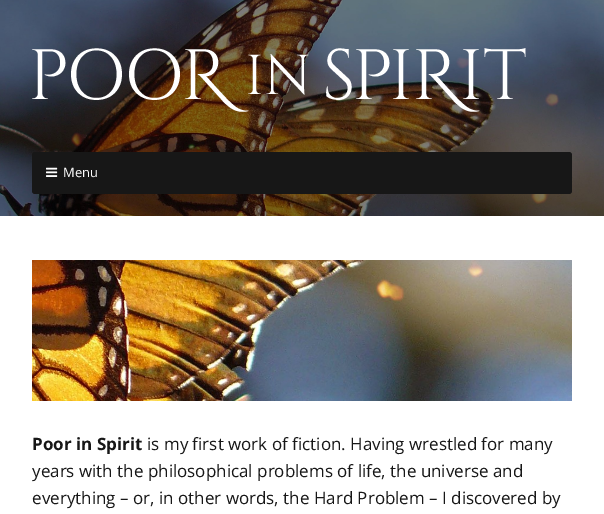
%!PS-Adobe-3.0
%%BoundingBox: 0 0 604 514
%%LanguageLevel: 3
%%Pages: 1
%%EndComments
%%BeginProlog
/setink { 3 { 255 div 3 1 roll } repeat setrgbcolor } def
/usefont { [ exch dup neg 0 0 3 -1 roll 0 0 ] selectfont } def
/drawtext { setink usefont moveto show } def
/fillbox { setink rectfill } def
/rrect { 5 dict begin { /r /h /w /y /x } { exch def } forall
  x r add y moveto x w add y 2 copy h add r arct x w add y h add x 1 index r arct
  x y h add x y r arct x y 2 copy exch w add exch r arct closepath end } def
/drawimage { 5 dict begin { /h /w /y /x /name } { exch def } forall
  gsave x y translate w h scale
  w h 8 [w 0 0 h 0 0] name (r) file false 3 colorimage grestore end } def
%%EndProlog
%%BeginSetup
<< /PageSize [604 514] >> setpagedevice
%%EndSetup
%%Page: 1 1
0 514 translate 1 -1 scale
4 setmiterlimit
0 0 604 514 255 255 255 fillbox
(assets/img1.rgb) 0 0 604 216 drawimage
(assets/img2.rgb) 32 48 494 64 drawimage
23 23 23 setink
32 152 540 42 3 rrect fill
(assets/img3.rgb) 46 167 12 10 drawimage
(Menu) 63 177 /OpenSans-Regular 13 255 255 255 drawtext
(assets/img4.rgb) 32 260 540 141 drawimage
(Poor in Spirit) 32 450 /OpenSans-Bold 17 23 23 23 drawtext
(is my first work of fiction. Having wrestled for many) 147 450 /OpenSans-Regular 17 23 23 23 drawtext
(years with the philosophical problems of life, the universe and) 32 477 /OpenSans-Regular 17 23 23 23 drawtext
(everything – or, in other words, the Hard Problem – I discovered by) 32 504 /OpenSans-Regular 17 23 23 23 drawtext
showpage
%%EOF
